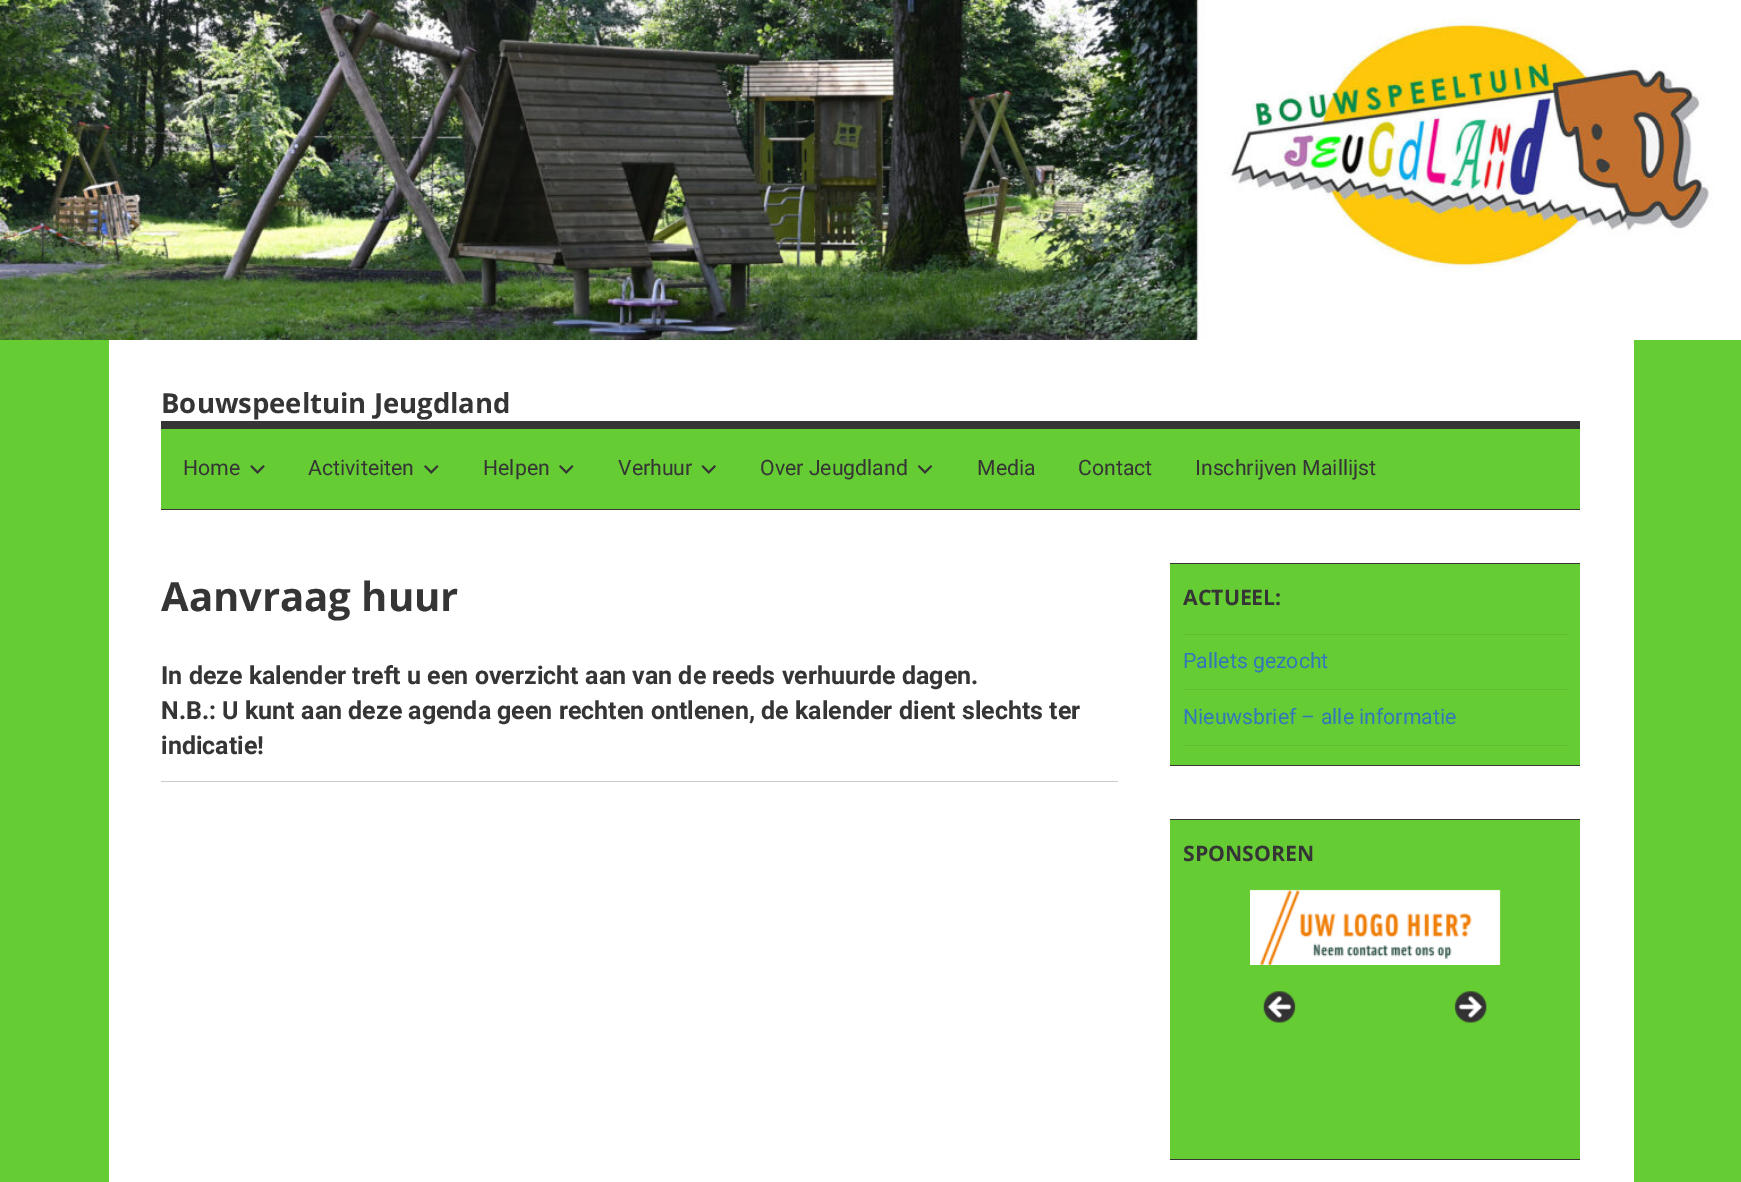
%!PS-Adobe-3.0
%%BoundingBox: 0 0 1741 1182
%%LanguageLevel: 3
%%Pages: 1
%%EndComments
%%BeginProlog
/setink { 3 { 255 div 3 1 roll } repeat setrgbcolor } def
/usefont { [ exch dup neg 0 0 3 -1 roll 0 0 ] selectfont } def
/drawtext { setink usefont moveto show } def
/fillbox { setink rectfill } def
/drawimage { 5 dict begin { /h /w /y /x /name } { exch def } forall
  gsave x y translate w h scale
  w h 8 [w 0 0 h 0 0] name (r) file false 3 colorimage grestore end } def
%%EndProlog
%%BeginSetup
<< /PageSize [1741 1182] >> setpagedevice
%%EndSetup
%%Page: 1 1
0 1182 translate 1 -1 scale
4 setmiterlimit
0 0 1741 1182 102 204 51 fillbox
(assets/img1.rgb) 0 0 1741 340 drawimage
109 340 1525 842 255 255 255 fillbox
(Bouwspeeltuin Jeugdland) 161 413 /OpenSans-Bold 27.5 53 53 53 drawtext
161 429 1419 80 102 204 51 fillbox
161 421 1419 8 53 53 53 fillbox
161 509 1419 1 53 53 53 fillbox
(Home) 183 475 /Roboto-Regular 21.25 53 53 53 drawtext
(assets/img2.rgb) 250 465 15 9 drawimage
(Activiteiten) 308 475 /Roboto-Regular 21.25 53 53 53 drawtext
(assets/img3.rgb) 424 465 15 9 drawimage
(Helpen) 483 475 /Roboto-Regular 21.25 53 53 53 drawtext
(assets/img3.rgb) 559 465 15 9 drawimage
(Verhuur) 618 475 /Roboto-Regular 21.25 53 53 53 drawtext
(assets/img4.rgb) 701 465 15 9 drawimage
(Over Jeugdland) 760 475 /Roboto-Regular 21.25 53 53 53 drawtext
(assets/img5.rgb) 917 465 16 9 drawimage
(Media) 977 475 /Roboto-Regular 21.25 53 53 53 drawtext
(Contact) 1078 475 /Roboto-Regular 21.25 53 53 53 drawtext
(Inschrijven Maillijst) 1195 475 /Roboto-Regular 21.25 53 53 53 drawtext
(Aanvraag huur) 161 611 /OpenSans-Bold 40 53 53 53 drawtext
(In deze kalender treft u een overzicht aan van de reeds verhuurde dagen.) 161 684 /Roboto-Bold 25 53 53 53 drawtext
(N.B.: U kunt aan deze agenda geen rechten ontlenen, de kalender dient slechts ter) 161 719 /Roboto-Bold 25 53 53 53 drawtext
(indicatie!) 161 754 /Roboto-Bold 25 53 53 53 drawtext
161 781 957 1 204 204 204 fillbox
1170 564 410 201 102 204 51 fillbox
1170 563 410 1 53 53 53 fillbox
1170 765 410 1 53 53 53 fillbox
(ACTUEEL:) 1183 605 /OpenSans-Bold 21.25 53 53 53 drawtext
1183 634 385 1 94 189 47 fillbox
(Pallets gezocht) 1183 668 /Roboto-Regular 21.25 51 119 187 drawtext
1183 689 385 1 94 189 47 fillbox
1183 745 385 1 94 189 47 fillbox
(Nieuwsbrief – alle informatie) 1183 724 /Roboto-Regular 21.25 51 119 187 drawtext
1170 820 410 339 102 204 51 fillbox
1170 819 410 1 53 53 53 fillbox
1170 1159 410 1 53 53 53 fillbox
(SPONSOREN) 1183 861 /OpenSans-Bold 21.25 53 53 53 drawtext
(assets/img6.rgb) 1250 889 251 76 drawimage
(assets/img7.rgb) 1263 991 33 32 drawimage
(assets/img8.rgb) 1454 991 33 32 drawimage
showpage
%%EOF
